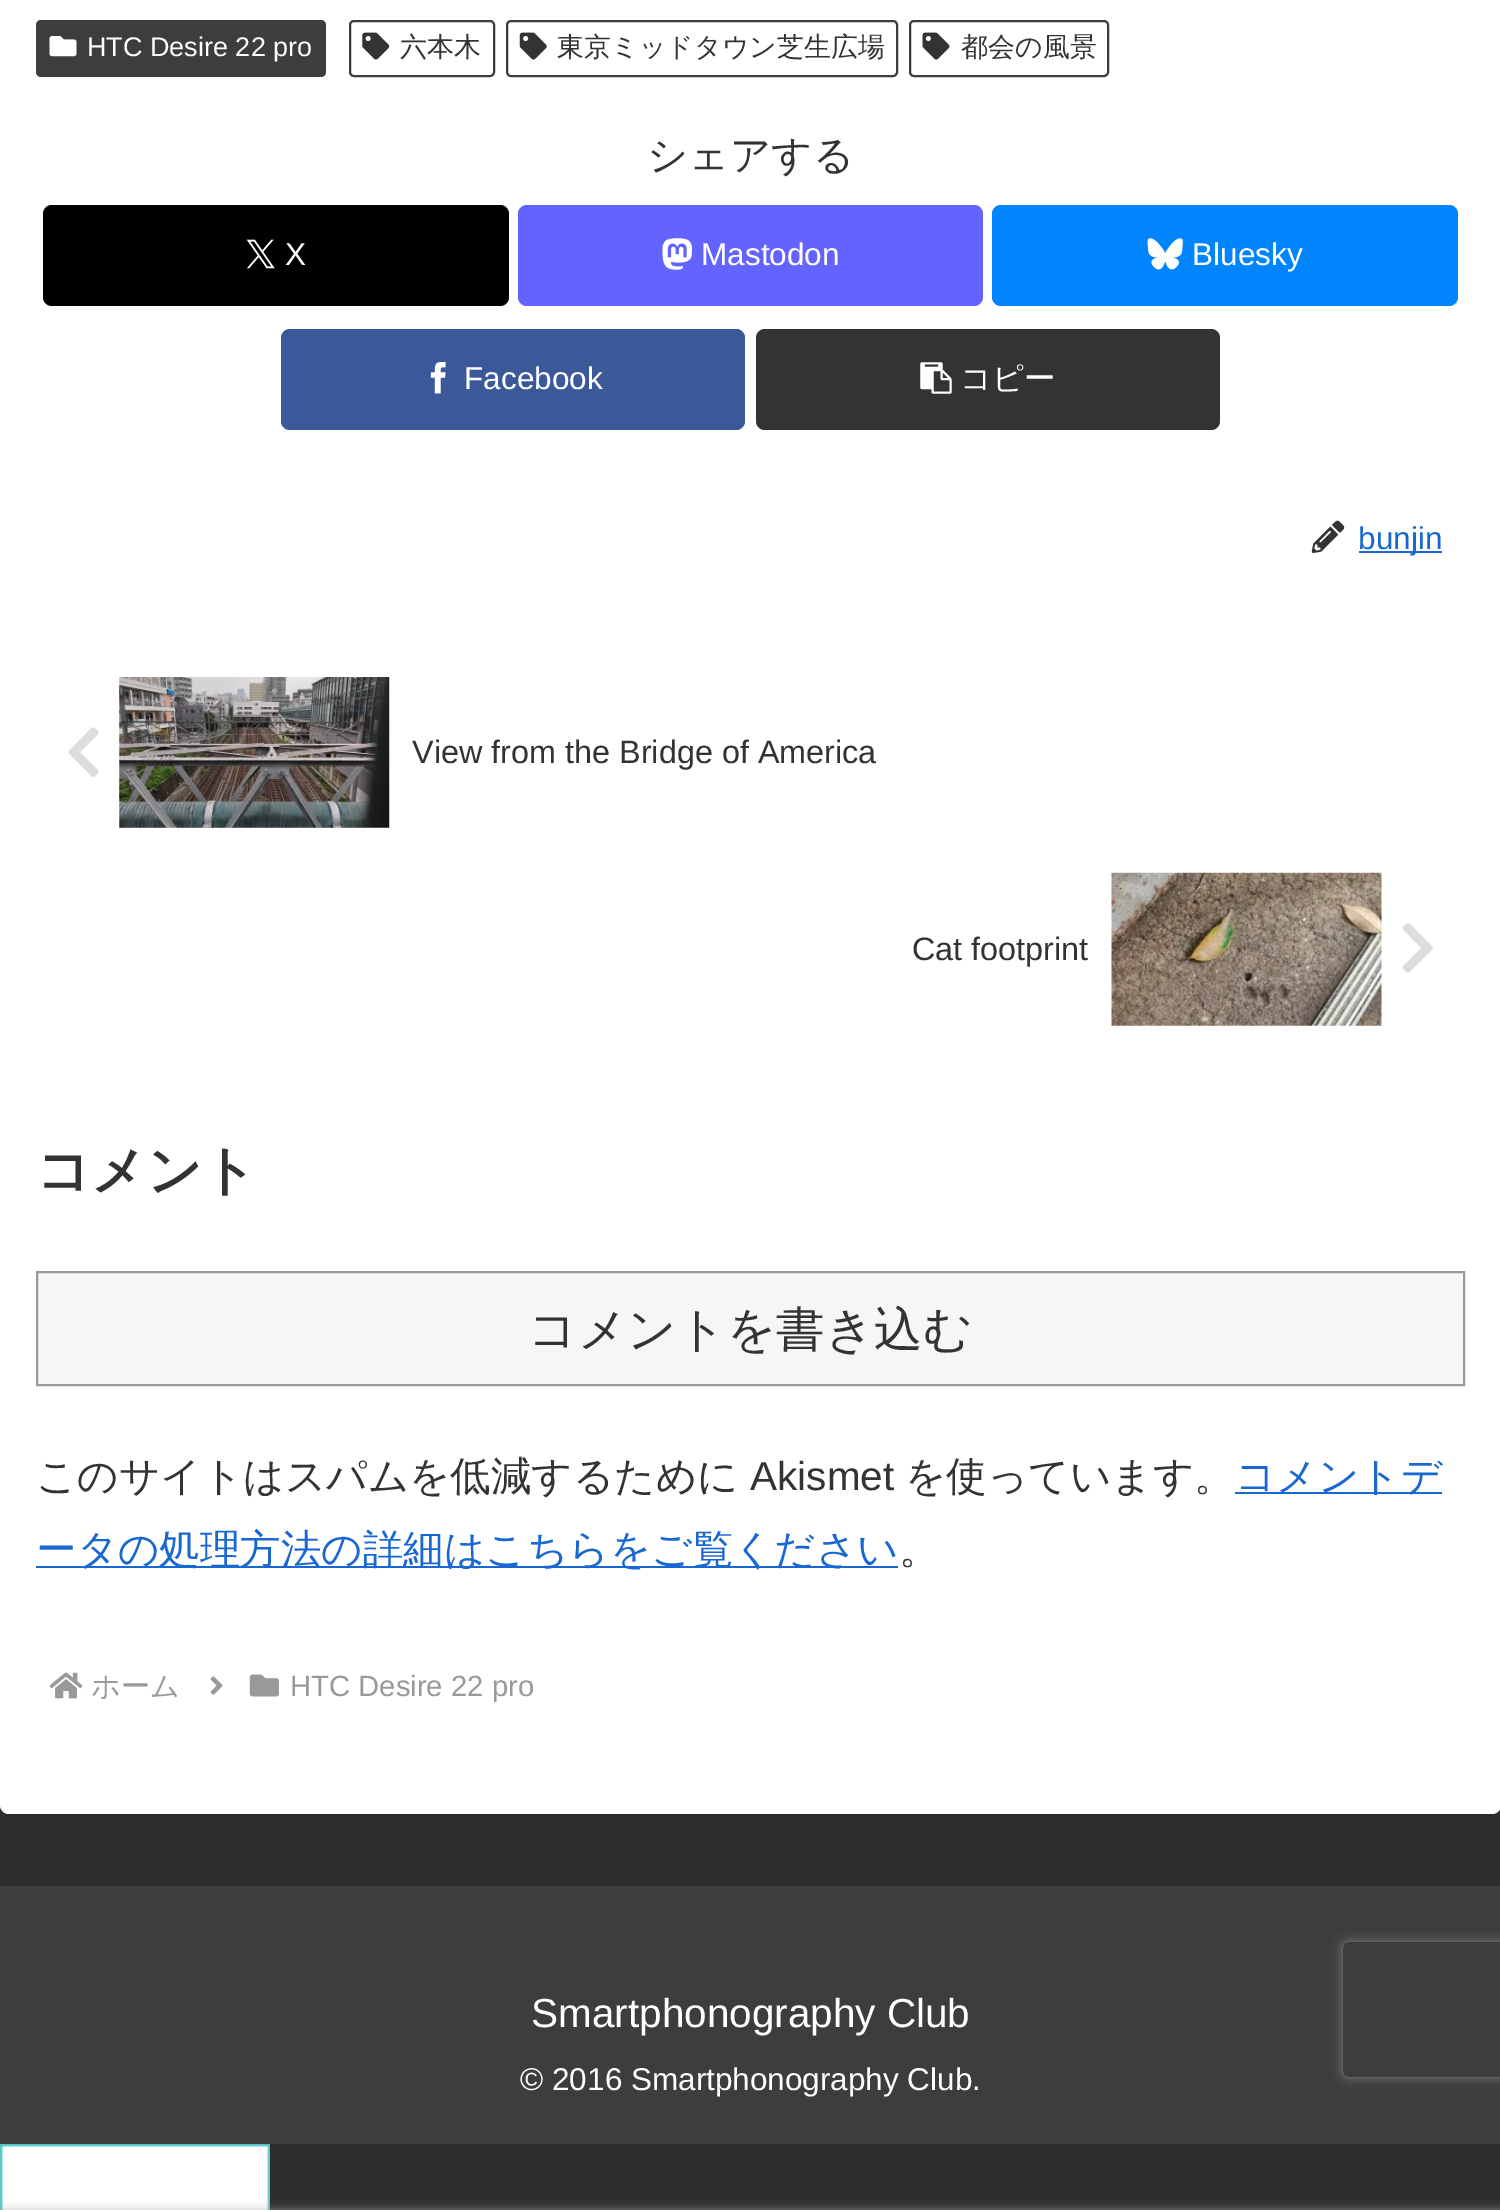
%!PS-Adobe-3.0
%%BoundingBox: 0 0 1500 2210
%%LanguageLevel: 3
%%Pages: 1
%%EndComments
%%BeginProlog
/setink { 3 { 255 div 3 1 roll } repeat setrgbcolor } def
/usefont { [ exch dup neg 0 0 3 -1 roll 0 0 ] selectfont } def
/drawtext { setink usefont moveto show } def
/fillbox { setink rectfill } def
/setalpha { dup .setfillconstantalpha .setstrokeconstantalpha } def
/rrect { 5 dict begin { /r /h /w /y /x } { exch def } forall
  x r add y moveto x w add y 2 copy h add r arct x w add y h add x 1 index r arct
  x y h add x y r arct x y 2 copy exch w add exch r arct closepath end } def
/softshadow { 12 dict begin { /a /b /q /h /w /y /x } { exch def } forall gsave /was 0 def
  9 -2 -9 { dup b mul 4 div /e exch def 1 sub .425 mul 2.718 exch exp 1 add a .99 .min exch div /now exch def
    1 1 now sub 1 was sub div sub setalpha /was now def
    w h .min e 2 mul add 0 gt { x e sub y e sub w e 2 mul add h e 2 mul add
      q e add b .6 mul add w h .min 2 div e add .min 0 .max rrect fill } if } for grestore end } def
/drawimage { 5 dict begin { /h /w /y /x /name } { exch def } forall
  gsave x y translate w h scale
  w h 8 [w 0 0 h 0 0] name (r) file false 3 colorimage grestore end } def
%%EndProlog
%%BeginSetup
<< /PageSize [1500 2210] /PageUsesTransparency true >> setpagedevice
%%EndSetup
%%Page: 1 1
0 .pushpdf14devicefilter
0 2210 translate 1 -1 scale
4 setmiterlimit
0 0 1500 2210 45 45 45 fillbox
255 255 255 setink
0 -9 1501 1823 9 rrect fill
61 61 61 setink
36 20 290 57 5 rrect fill
(assets/img1.rgb) 49 36 28 21 drawimage
(HTC Desire 22 pro) 87 56 /LiberationSans-Regular 27 255 255 255 drawtext
61 61 61 setink
2 setlinewidth
350 21 144 55 4 rrect stroke
(assets/img2.rgb) 362 32 28 28 drawimage
(六本木) 400 56 /WenQuanYiZenHei-Medium 27 51 51 51 drawtext
61 61 61 setink
507 21 390 55 4 rrect stroke
(assets/img3.rgb) 519 32 28 28 drawimage
(東京ミッドタウン芝生広場) 557 56 /WenQuanYiZenHei-Medium 27 51 51 51 drawtext
61 61 61 setink
910 21 198 55 4 rrect stroke
(assets/img4.rgb) 922 32 28 28 drawimage
(都会の風景) 961 56 /WenQuanYiZenHei-Medium 27 51 51 51 drawtext
(シェアする) 647 169 /WenQuanYiZenHei-Medium 40.5 51 51 51 drawtext
0 0 0 setink
43 205 466 101 9 rrect fill
(assets/img5.rgb) 246 239 29 30 drawimage
(X) 285 265 /LiberationSans-Regular 31.5 255 255 255 drawtext
99 100 255 setink
518 205 465 101 9 rrect fill
(assets/img6.rgb) 662 238 30 32 drawimage
(Mastodon) 701 265 /LiberationSans-Regular 31.5 255 255 255 drawtext
0 133 255 setink
992 205 466 101 9 rrect fill
(assets/img7.rgb) 1147 238 36 32 drawimage
(Bluesky) 1192 265 /LiberationSans-Regular 31.5 255 255 255 drawtext
59 89 152 setink
281 329 464 101 9 rrect fill
(assets/img8.rgb) 430 362 16 32 drawimage
(Facebook) 464 389 /LiberationSans-Regular 31.5 255 255 255 drawtext
51 51 51 setink
756 329 464 101 9 rrect fill
(assets/img9.rgb) 920 362 32 32 drawimage
(コピー) 960 389 /WenQuanYiZenHei-Medium 31.5 255 255 255 drawtext
(assets/img10.rgb) 1311 520 34 34 drawimage
1359 551 83 2 25 103 210 fillbox
(bunjin) 1358 549 /LiberationSans-Regular 31.5 25 103 210 drawtext
(assets/img11.rgb) 68 727 31 50 drawimage
(assets/img12.rgb) 119 677 271 151 drawimage
(View from the Bridge of America) 412 763 /LiberationSans-Regular 32.4 51 51 51 drawtext
(Cat footprint) 912 960 /LiberationSans-Regular 32.4 51 51 51 drawtext
(assets/img13.rgb) 1111 872 271 154 drawimage
(assets/img14.rgb) 1402 923 31 50 drawimage
(コメント) 36 1189 /WenQuanYiZenHei-Bold 54 51 51 51 drawtext
246 246 246 setink
37 1272 moveto 1464 1272 lineto 1464 1385 lineto 37 1385 lineto closepath gsave fill grestore
154 154 154 setink
stroke
(コメントを書き込む) 528 1346 /WenQuanYiZenHei-Medium 48.5 51 51 51 drawtext
(このサイトはスパムを低減するために) 36 1490 /WenQuanYiZenHei-Medium 40.5 51 51 51 drawtext
(Akismet) 750 1490 /LiberationSans-Regular 40.5 51 51 51 drawtext
(を使っています。) 905 1490 /WenQuanYiZenHei-Medium 40.5 51 51 51 drawtext
1235 1492 207 2 25 103 210 fillbox
(コメントデ) 1235 1490 /WenQuanYiZenHei-Medium 40.5 25 103 210 drawtext
36 1566 862 2 25 103 210 fillbox
(ータの処理方法の詳細はこちらをご覧ください) 36 1563 /WenQuanYiZenHei-Medium 40.5 25 103 210 drawtext
(。) 899 1563 /WenQuanYiZenHei-Medium 40.5 51 51 51 drawtext
(assets/img15.rgb) 49 1672 34 27 drawimage
(ホーム) 91 1696 /WenQuanYiZenHei-Medium 29.25 153 153 153 drawtext
(assets/img16.rgb) 210 1676 13 19 drawimage
(assets/img17.rgb) 249 1674 30 23 drawimage
(HTC Desire 22 pro) 290 1696 /LiberationSans-Regular 29.25 153 153 153 drawtext
0 1886 1500 258 61 61 61 fillbox
(Smartphonography Club) 531 2027 /LiberationSans-Regular 40.5 255 255 255 drawtext
(© 2016 Smartphonography Club.) 520 2090 /LiberationSans-Regular 31.5 255 255 255 drawtext
(assets/img18.rgb) 0 2144 270 66 drawimage
169 169 169 setink
0 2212 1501 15 0 5.5 1 softshadow
gsave
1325 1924 moveto 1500 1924 lineto 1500 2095 lineto 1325 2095 lineto closepath 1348 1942 moveto 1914 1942 lineto 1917 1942 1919 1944 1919 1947 curveto 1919 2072 lineto 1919 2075 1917 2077 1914 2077 curveto 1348 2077 lineto 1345 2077 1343 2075 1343 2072 curveto 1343 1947 lineto 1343 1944 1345 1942 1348 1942 curveto closepath eoclip newpath
128 128 128 setink
1343 1942 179 135 5 5.5 1 softshadow
grestore
.poppdf14devicefilter showpage
%%EOF
